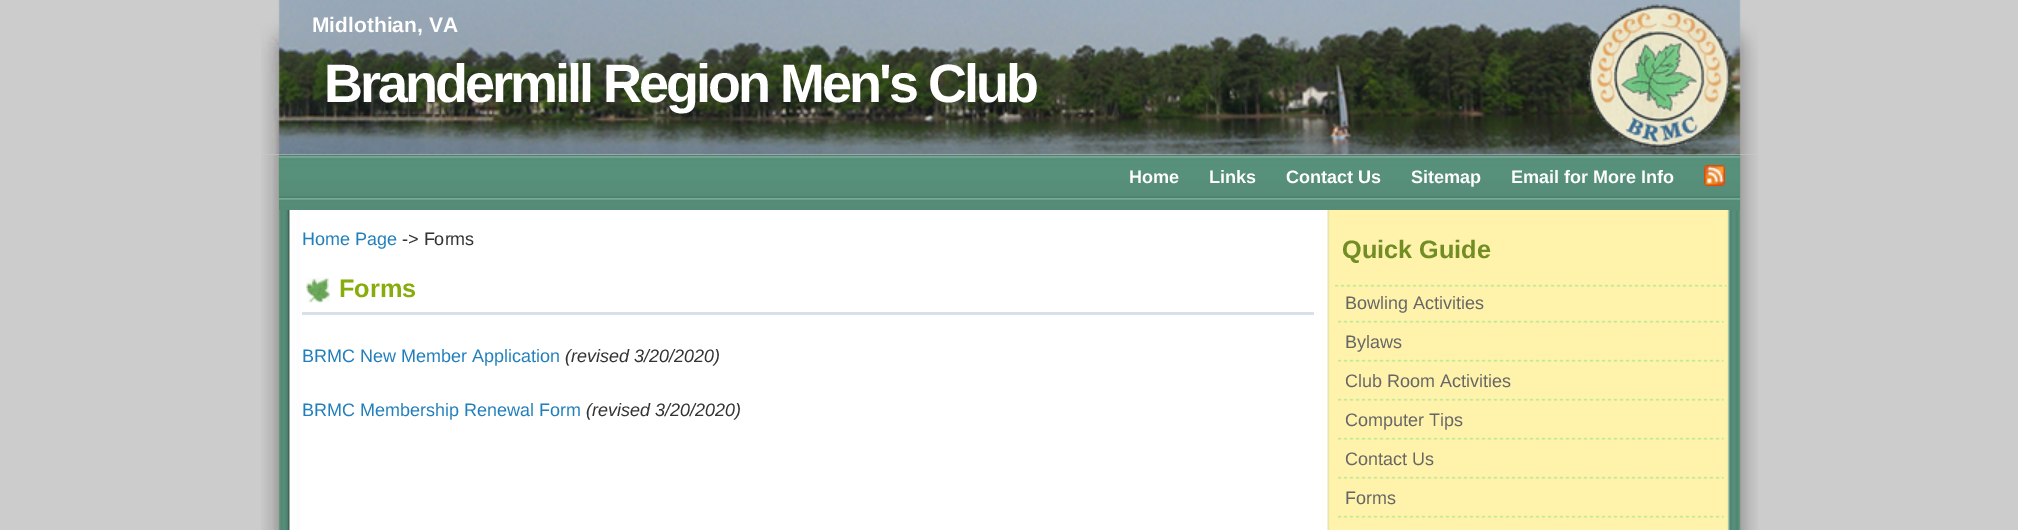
%!PS-Adobe-3.0
%%BoundingBox: 0 0 2018 530
%%LanguageLevel: 3
%%Pages: 1
%%EndComments
%%BeginProlog
/setink { 3 { 255 div 3 1 roll } repeat setrgbcolor } def
/usefont { [ exch dup neg 0 0 3 -1 roll 0 0 ] selectfont } def
/drawtext { setink usefont moveto show } def
/fillbox { setink rectfill } def
/drawimage { 5 dict begin { /h /w /y /x /name } { exch def } forall
  gsave x y translate w h scale
  w h 8 [w 0 0 h 0 0] name (r) file false 3 colorimage grestore end } def
%%EndProlog
%%BeginSetup
<< /PageSize [2018 530] >> setpagedevice
%%EndSetup
%%Page: 1 1
0 530 translate 1 -1 scale
4 setmiterlimit
0 0 2018 530 204 204 204 fillbox
(assets/img1.rgb) 261 155 1497 375 drawimage
(assets/img2.rgb) 261 0 1497 155 drawimage
(Midlothian, VA) 312 32 /LiberationSans-Bold 21 255 255 255 drawtext
(assets/img3.rgb) 1586 4 146 145 drawimage
/LiberationSans-Bold 54 usefont
324 102 moveto -3 0 (Brandermill Region Men's Club) ashow
(assets/img4.rgb) 279 155 1461 55 drawimage
(Home) 1129 183 /LiberationSans-Bold 18 255 255 255 drawtext
(Links) 1209 183 /LiberationSans-Bold 18 255 255 255 drawtext
(Contact Us) 1286 183 /LiberationSans-Bold 18 255 255 255 drawtext
(Sitemap) 1411 183 /LiberationSans-Bold 18 255 255 255 drawtext
(Email for More Info) 1511 183 /LiberationSans-Bold 18 255 255 255 drawtext
(assets/img5.rgb) 1704 165 21 21 drawimage
(Home Page) 302 245 /LiberationSans-Regular 18 33 128 188 drawtext
(-> Forms) 402 245 /LiberationSans-Regular 18 51 51 51 drawtext
(assets/img6.rgb) 306 277 24 26 drawimage
302 312 1012 3 217 225 232 fillbox
(Forms) 339 297 /LiberationSans-Bold 25.25 136 172 11 drawtext
(BRMC New Member Application) 302 362 /LiberationSans-Regular 18 33 128 188 drawtext
(\(revised 3/20/2020\)) 565 362 /LiberationSans-Italic 18 51 51 51 drawtext
(BRMC Membership Renewal Form) 302 416 /LiberationSans-Regular 18 33 128 188 drawtext
(\(revised 3/20/2020\)) 586 416 /LiberationSans-Italic 18 51 51 51 drawtext
(Quick Guide) 1342 258 /LiberationSans-Bold 25.25 114 141 38 drawtext
(assets/img7.rgb) 1335 284 392 3 drawimage
(assets/img8.rgb) 1338 320 386 3 drawimage
(Bowling Activities) 1345 309 /LiberationSans-Regular 18 102 102 102 drawtext
(assets/img9.rgb) 1338 359 386 3 drawimage
(Bylaws) 1345 348 /LiberationSans-Regular 18 102 102 102 drawtext
(assets/img9.rgb) 1338 398 386 3 drawimage
(Club Room Activities) 1345 387 /LiberationSans-Regular 18 102 102 102 drawtext
(assets/img10.rgb) 1338 437 386 3 drawimage
(Computer Tips) 1345 426 /LiberationSans-Regular 18 102 102 102 drawtext
(assets/img11.rgb) 1338 476 386 3 drawimage
(Contact Us) 1345 465 /LiberationSans-Regular 18 102 102 102 drawtext
(assets/img12.rgb) 1338 515 386 3 drawimage
(Forms) 1345 504 /LiberationSans-Regular 18 102 102 102 drawtext
showpage
%%EOF
